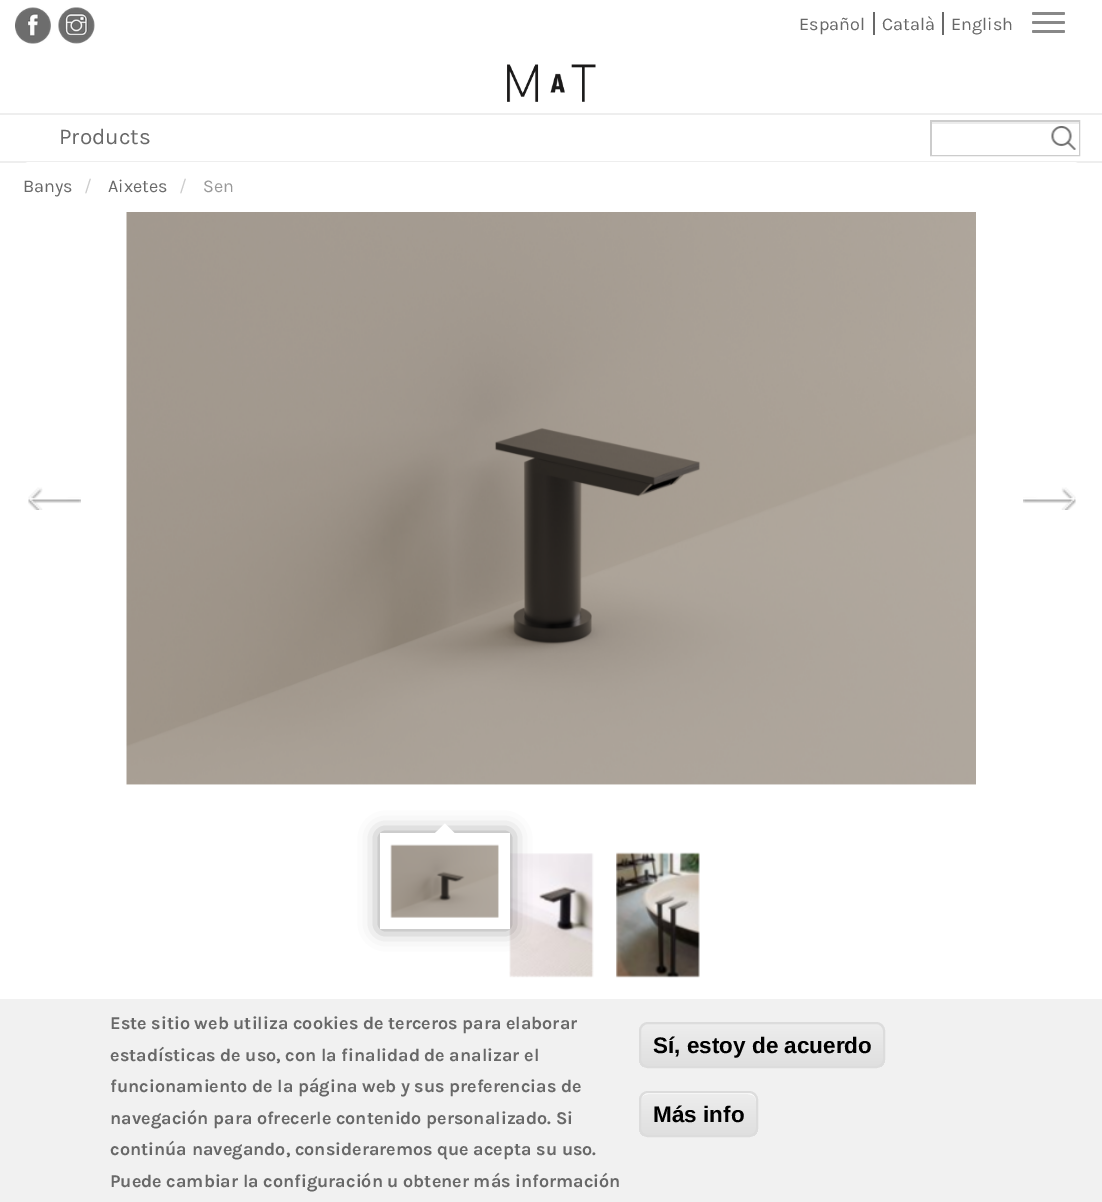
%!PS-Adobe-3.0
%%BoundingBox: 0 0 1102 1202
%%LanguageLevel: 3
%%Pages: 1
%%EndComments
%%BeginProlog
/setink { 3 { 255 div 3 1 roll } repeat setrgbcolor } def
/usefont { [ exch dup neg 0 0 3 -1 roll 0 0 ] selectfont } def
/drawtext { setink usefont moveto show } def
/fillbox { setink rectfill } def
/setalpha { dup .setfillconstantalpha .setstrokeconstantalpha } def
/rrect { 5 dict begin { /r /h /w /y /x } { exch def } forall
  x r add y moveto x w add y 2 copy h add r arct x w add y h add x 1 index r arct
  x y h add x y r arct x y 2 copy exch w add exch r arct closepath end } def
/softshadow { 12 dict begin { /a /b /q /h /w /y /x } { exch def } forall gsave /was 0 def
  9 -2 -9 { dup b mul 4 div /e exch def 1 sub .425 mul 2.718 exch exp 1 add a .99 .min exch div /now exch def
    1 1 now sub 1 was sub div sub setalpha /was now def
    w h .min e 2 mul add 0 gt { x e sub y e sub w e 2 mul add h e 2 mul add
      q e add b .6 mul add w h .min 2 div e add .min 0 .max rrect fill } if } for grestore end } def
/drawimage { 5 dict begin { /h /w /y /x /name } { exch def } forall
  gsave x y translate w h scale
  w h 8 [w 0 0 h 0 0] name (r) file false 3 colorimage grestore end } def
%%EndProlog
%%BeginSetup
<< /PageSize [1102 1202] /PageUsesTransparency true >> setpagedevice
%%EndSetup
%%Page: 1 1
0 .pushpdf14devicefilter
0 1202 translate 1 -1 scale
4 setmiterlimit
0 0 1102 1202 255 255 255 fillbox
(assets/img1.rgb) 15 7 36 37 drawimage
(assets/img2.rgb) 58 7 37 37 drawimage
873 12 2 23 104 104 104 fillbox
(Español) 799 30 /Karla-Regular 18 104 104 104 drawtext
942 12 2 23 104 104 104 fillbox
(Català) 882 30 /Karla-Regular 18 104 104 104 drawtext
(English) 951 30 /Karla-Regular 18 104 104 104 drawtext
(assets/img3.rgb) 507 64 89 38 drawimage
204 204 204 setink
2 setlinewidth
931 121 148 34 rectstroke
932 124 147 31 255 255 255 fillbox
(assets/img4.rgb) 1051 126 25 24 drawimage
932 122 147 2 236 236 236 fillbox
136 136 136 setink
1032 12 33 3 1.5 rrect fill
1032 21 33 3 1.5 rrect fill
1032 30 33 3 1.5 rrect fill
0 113 1102 2 238 238 238 fillbox
0 161 1102 2 238 238 238 fillbox
(Products) 59 144 /Karla-Regular 22.5 104 104 104 drawtext
255 255 255 setink
23 162 1057 50 6 rrect fill
(Banys) 23 192 /Karla-Regular 18 104 104 104 drawtext
(/) 84 192 /Karla-Regular 18 204 204 204 drawtext
(Aixetes) 108 192 /Karla-Regular 18 104 104 104 drawtext
(/) 179 192 /Karla-Regular 18 204 204 204 drawtext
(Sen) 203 192 /Karla-Regular 18 153 153 153 drawtext
(assets/img5.rgb) 126 212 850 573 drawimage
(assets/img6.rgb) 28 487 53 23 drawimage
(assets/img7.rgb) 1023 487 53 23 drawimage
(assets/img9.rgb) 509 853 85 125 drawimage
0 0 0 setink
380 833 130 96 0 10 0.4 softshadow
380 833 130 96 255 255 255 fillbox
460.5 839 moveto 429 839 lineto 445 823.5 lineto closepath fill
(assets/img8.rgb) 390 844 109 74 drawimage
(assets/img10.rgb) 616 852 84 126 drawimage
0 999 1102 203 241 241 241 fillbox
(Este sitio web utiliza cookies de terceros para elaborar) 110 1029 /Karla-Bold 18 104 104 104 drawtext
(estadísticas de uso, con la finalidad de analizar el) 110 1061 /Karla-Bold 18 104 104 104 drawtext
(funcionamiento de la página web y sus preferencias de) 110 1092 /Karla-Bold 18 104 104 104 drawtext
(navegación para ofrecerle contenido personalizado. Si) 110 1124 /Karla-Bold 18 104 104 104 drawtext
(continúa navegando, consideraremos que acepta su uso.) 110 1155 /Karla-Bold 18 104 104 104 drawtext
(Puede cambiar la configuración u obtener más información) 110 1187 /Karla-Bold 18 104 104 104 drawtext
gsave
639 1022 246 46 9 rrect clip newpath
gsave 639 1023 moveto 885 1023 lineto 885 1067 lineto 639 1067 lineto closepath clip newpath
<< /ShadingType 2 /ColorSpace /DeviceRGB /Coords [762 1023 762 1067] /Extend [true true] /Function << /FunctionType 3 /Domain [0 1] /Functions [<< /FunctionType 2 /Domain [0 1] /C0 [0.929 0.929 0.929] /C1 [0.929 0.929 0.929] /N 1 >> << /FunctionType 2 /Domain [0 1] /C0 [0.929 0.929 0.929] /C1 [0.875 0.875 0.875] /N 1 >>] /Bounds [0.05] /Encode [0 1 0 1] >> >> shfill grestore
grestore
220 220 220 setink
640 1023 244 44 8 rrect stroke
(Sí, estoy de acuerdo) 653 1053 /LiberationSans-Bold 22.5 0 0 0 drawtext
gsave
639 1091 119 46 9 rrect clip newpath
gsave 639 1092 moveto 758 1092 lineto 758 1136 lineto 639 1136 lineto closepath clip newpath
<< /ShadingType 2 /ColorSpace /DeviceRGB /Coords [698 1092 698 1136] /Extend [true true] /Function << /FunctionType 3 /Domain [0 1] /Functions [<< /FunctionType 2 /Domain [0 1] /C0 [0.929 0.929 0.929] /C1 [0.929 0.929 0.929] /N 1 >> << /FunctionType 2 /Domain [0 1] /C0 [0.929 0.929 0.929] /C1 [0.875 0.875 0.875] /N 1 >>] /Bounds [0.05] /Encode [0 1 0 1] >> >> shfill grestore
grestore
255 255 255 setink
648 1094 moveto 748 1094 lineto 753 1094 756 1097 756 1101 curveto 756 1100 lineto 756 1096 752 1092 748 1092 curveto 649 1092 lineto 646 1092 643 1094 642 1097 curveto 643 1095 646 1094 648 1094 curveto closepath fill
220 220 220 setink
640 1092 117 44 8 rrect stroke
(Más info) 653 1122 /LiberationSans-Bold 22.5 0 0 0 drawtext
.poppdf14devicefilter showpage
%%EOF
